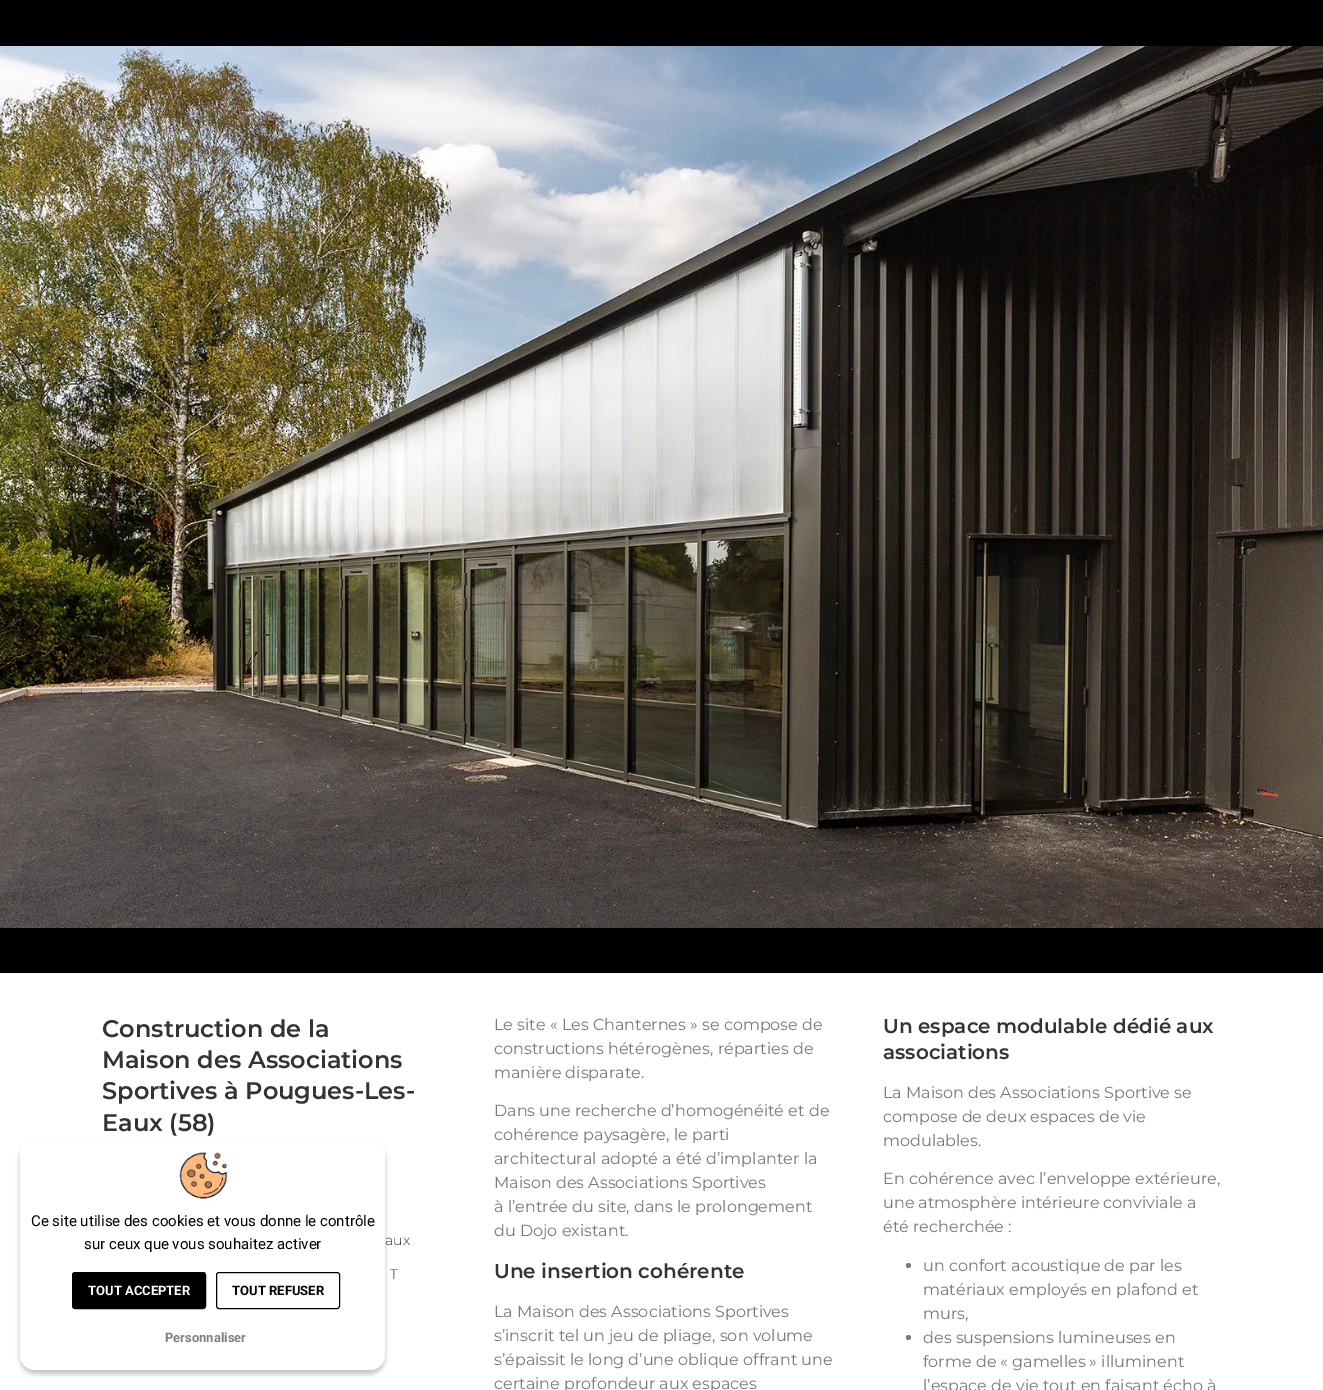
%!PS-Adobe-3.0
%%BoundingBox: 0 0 1323 1390
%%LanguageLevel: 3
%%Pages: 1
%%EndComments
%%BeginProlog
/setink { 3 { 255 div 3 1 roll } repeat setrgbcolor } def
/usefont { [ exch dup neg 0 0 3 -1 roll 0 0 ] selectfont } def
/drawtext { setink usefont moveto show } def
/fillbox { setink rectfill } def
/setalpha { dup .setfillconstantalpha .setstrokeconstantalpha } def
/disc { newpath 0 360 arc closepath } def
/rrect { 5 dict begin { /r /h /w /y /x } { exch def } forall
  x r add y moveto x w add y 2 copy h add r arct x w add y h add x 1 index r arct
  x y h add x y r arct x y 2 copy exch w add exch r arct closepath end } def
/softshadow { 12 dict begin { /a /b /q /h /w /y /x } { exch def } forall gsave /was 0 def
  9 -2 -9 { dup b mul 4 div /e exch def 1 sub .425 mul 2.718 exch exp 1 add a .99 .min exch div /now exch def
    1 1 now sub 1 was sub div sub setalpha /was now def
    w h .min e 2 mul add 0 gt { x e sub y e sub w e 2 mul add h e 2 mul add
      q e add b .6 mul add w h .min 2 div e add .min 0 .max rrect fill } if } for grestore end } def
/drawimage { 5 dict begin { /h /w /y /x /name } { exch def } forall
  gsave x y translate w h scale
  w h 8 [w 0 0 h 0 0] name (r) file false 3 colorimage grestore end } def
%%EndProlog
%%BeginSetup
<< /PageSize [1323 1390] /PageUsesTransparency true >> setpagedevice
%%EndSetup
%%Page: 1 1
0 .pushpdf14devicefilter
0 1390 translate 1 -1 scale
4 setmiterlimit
0 0 1323 1390 255 255 255 fillbox
0 0 1323 973 0 0 0 fillbox
(assets/img1.rgb) 0 46 1323 882 drawimage
(Construction de la) 102 1037 /Montserrat-SemiBold 24 51 51 51 drawtext
(Maison des Associations) 102 1068 /Montserrat-SemiBold 24 51 51 51 drawtext
(Sportives à Pougues-Les-) 102 1099 /Montserrat-SemiBold 24 51 51 51 drawtext
(Eaux \(58\)) 102 1131 /Montserrat-SemiBold 24 51 51 51 drawtext
(aux) 385 1245 /Montserrat-Light 14 51 51 51 drawtext
(T) 390 1279 /Montserrat-Light 14 51 51 51 drawtext
(Le site « Les Chanternes » se compose de) 494 1030 /Montserrat-Regular 16 122 122 122 drawtext
(constructions hétérogènes, réparties de) 494 1054 /Montserrat-Regular 16 122 122 122 drawtext
(manière disparate.) 494 1078 /Montserrat-Regular 16 122 122 122 drawtext
(Un espace modulable dédié aux) 883 1033 /Montserrat-SemiBold 20 51 51 51 drawtext
(associations) 883 1059 /Montserrat-SemiBold 20 51 51 51 drawtext
(Dans une recherche d’homogénéité et de) 494 1116 /Montserrat-Regular 16 122 122 122 drawtext
(cohérence paysagère, le parti) 494 1140 /Montserrat-Regular 16 122 122 122 drawtext
(architectural adopté a été d’implanter la) 494 1164 /Montserrat-Regular 16 122 122 122 drawtext
(Maison des Associations Sportives) 494 1188 /Montserrat-Regular 16 122 122 122 drawtext
(à l’entrée du site, dans le prolongement) 494 1212 /Montserrat-Regular 16 122 122 122 drawtext
(du Dojo existant.) 494 1236 /Montserrat-Regular 16 122 122 122 drawtext
(La Maison des Associations Sportive se) 883 1098 /Montserrat-Regular 16 122 122 122 drawtext
(compose de deux espaces de vie) 883 1122 /Montserrat-Regular 16 122 122 122 drawtext
(modulables.) 883 1146 /Montserrat-Regular 16 122 122 122 drawtext
(En cohérence avec l’enveloppe extérieure,) 883 1184 /Montserrat-Regular 16 122 122 122 drawtext
(une atmosphère intérieure conviviale a) 883 1208 /Montserrat-Regular 16 122 122 122 drawtext
(été recherchée :) 883 1232 /Montserrat-Regular 16 122 122 122 drawtext
(Une insertion cohérente) 494 1278 /Montserrat-SemiBold 20 51 51 51 drawtext
122 122 122 setink
908.5 1265.5 2.5 disc fill
(un confort acoustique de par les) 923 1271 /Montserrat-Regular 16 122 122 122 drawtext
(matériaux employés en plafond et) 923 1295 /Montserrat-Regular 16 122 122 122 drawtext
(murs,) 923 1319 /Montserrat-Regular 16 122 122 122 drawtext
908.5 1337.5 2.5 disc fill
(des suspensions lumineuses en) 923 1343 /Montserrat-Regular 16 122 122 122 drawtext
(forme de « gamelles » illuminent) 923 1367 /Montserrat-Regular 16 122 122 122 drawtext
(l’espace de vie tout en faisant écho à) 923 1391 /Montserrat-Regular 16 122 122 122 drawtext
(La Maison des Associations Sportives) 494 1317 /Montserrat-Regular 16 122 122 122 drawtext
(s’inscrit tel un jeu de pliage, son volume) 494 1341 /Montserrat-Regular 16 122 122 122 drawtext
(s’épaissit le long d’une oblique offrant une) 494 1365 /Montserrat-Regular 16 122 122 122 drawtext
(certaine profondeur aux espaces) 494 1389 /Montserrat-Regular 16 122 122 122 drawtext
0 0 0 setink
20 1144 365 230 15 2.5 0.24 softshadow
255 255 255 setink
20 1140 365 230 15 rrect fill
(assets/img2.rgb) 179 1152 49 47 drawimage
(Ce site utilise des cookies et vous donne le contrôle) 31 1226 /Roboto-Regular 15 0 0 0 drawtext
(sur ceux que vous souhaitez activer) 84 1249 /Roboto-Regular 15 0 0 0 drawtext
72.5 1272.5 133 36 2.5 rrect gsave fill grestore
stroke
(TOUT ACCEPTER) 88 1295 /Roboto-Bold 13 255 255 255 drawtext
0 0 0 setink
216.5 1272.5 123 36 2.5 rrect stroke
(TOUT REFUSER) 232 1295 /Roboto-Bold 13 0 0 0 drawtext
(Personnaliser) 165 1342 /Roboto-Bold 13 128 128 128 drawtext
.poppdf14devicefilter showpage
%%EOF
